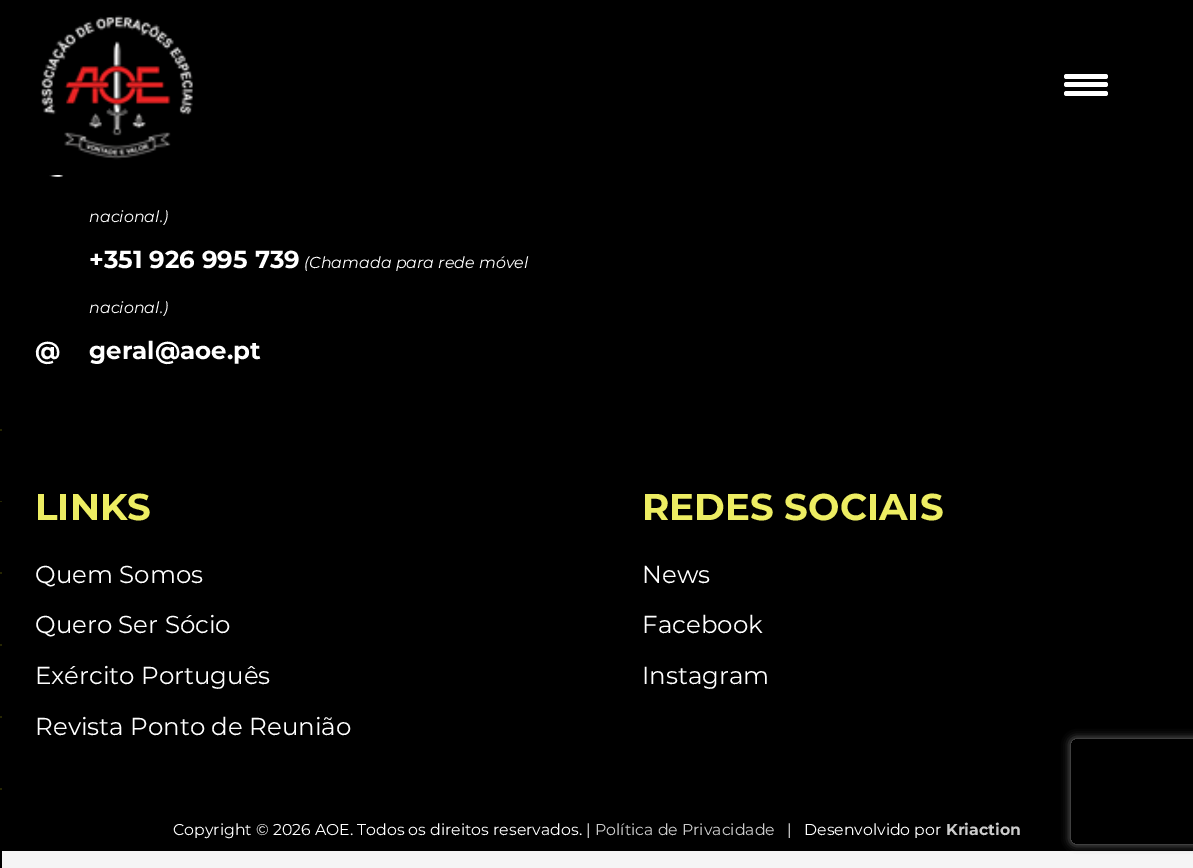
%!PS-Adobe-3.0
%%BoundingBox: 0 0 1193 868
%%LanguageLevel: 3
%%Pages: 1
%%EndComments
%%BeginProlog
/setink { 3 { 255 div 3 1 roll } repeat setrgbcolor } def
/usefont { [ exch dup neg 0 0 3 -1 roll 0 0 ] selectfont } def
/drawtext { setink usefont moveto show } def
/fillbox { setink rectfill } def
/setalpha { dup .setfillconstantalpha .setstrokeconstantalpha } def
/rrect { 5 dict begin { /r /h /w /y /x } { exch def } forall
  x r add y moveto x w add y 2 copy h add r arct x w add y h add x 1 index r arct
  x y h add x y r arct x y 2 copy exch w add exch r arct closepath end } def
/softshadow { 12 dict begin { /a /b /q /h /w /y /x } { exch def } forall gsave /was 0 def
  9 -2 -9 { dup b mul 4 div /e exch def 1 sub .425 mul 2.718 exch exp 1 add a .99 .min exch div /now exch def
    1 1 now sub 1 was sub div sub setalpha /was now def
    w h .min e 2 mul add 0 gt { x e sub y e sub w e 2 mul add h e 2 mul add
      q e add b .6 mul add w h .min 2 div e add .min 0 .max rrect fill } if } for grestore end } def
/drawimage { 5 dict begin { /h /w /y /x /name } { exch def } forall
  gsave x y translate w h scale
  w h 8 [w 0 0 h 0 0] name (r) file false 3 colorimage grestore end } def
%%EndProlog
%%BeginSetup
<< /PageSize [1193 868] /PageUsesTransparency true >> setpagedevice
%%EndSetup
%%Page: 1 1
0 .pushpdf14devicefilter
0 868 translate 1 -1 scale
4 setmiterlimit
0 0 1193 868 245 245 245 fillbox
0 0 1193 175 0 0 0 fillbox
(assets/img1.rgb) 40 15 153 145 drawimage
255 255 255 setink
1064 82 44 5 2.5 rrect fill
1064 74 44 5 2.5 rrect fill
1064 91 44 5 2.5 rrect fill
0 175 2 693 0 0 0 fillbox
0 429 2 2 38 38 2 fillbox
0 501 2 1 38 38 2 fillbox
0 572 2 2 38 38 2 fillbox
0 644 2 2 38 38 2 fillbox
0 716 2 2 38 38 2 fillbox
0 788 2 2 38 38 2 fillbox
2 175 1191 676 0 0 0 fillbox
(assets/img2.rgb) 49 175 15 2 drawimage
(nacional.\)) 89 222 /Montserrat-ThinItalic 15.9 255 255 255 drawtext
(+351 926 995 739) 89 268 /Montserrat-Bold 24.5 255 255 255 drawtext
(\(Chamada para rede móvel) 304 268 /Montserrat-ThinItalic 15.9 255 255 255 drawtext
(nacional.\)) 89 313 /Montserrat-ThinItalic 15.9 255 255 255 drawtext
(@) 35 359 /Montserrat-Bold 24.5 255 255 255 drawtext
(geral@aoe.pt) 89 359 /Montserrat-Bold 24.5 255 255 255 drawtext
(LINKS) 35 520 /Montserrat-Bold 37.25 237 237 98 drawtext
(Quem Somos) 35 583 /Montserrat-Regular 24.5 255 255 255 drawtext
(Quero Ser Sócio) 35 633 /Montserrat-Regular 24.5 255 255 255 drawtext
(Exército Português) 35 684 /Montserrat-Regular 24.5 255 255 255 drawtext
(Revista Ponto de Reunião) 35 735 /Montserrat-Regular 24.5 255 255 255 drawtext
(REDES SOCIAIS) 642 520 /Montserrat-Bold 37.25 237 237 98 drawtext
(News) 642 583 /Montserrat-Regular 24.5 255 255 255 drawtext
(Facebook) 642 633 /Montserrat-Regular 24.5 255 255 255 drawtext
(Instagram) 642 684 /Montserrat-Regular 24.5 255 255 255 drawtext
(Copyright © 2026 AOE. Todos os direitos reservados. |) 173 835 /Montserrat-Regular 15.75 255 255 255 drawtext
(Política de Privacidade) 595 835 /Montserrat-Regular 15.75 204 204 204 drawtext
(|   Desenvolvido por) 787 835 /Montserrat-Regular 15.75 255 255 255 drawtext
(Kriaction) 946 835 /Montserrat-Bold 15.75 204 204 204 drawtext
gsave
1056 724 moveto 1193 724 lineto 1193 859 lineto 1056 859 lineto closepath 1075 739 moveto 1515 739 lineto 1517 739 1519 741 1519 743 curveto 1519 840 lineto 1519 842 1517 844 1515 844 curveto 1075 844 lineto 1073 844 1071 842 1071 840 curveto 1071 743 lineto 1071 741 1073 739 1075 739 curveto closepath eoclip newpath
128 128 128 setink
1071 739 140 105 4 4.5 1 softshadow
grestore
.poppdf14devicefilter showpage
%%EOF
